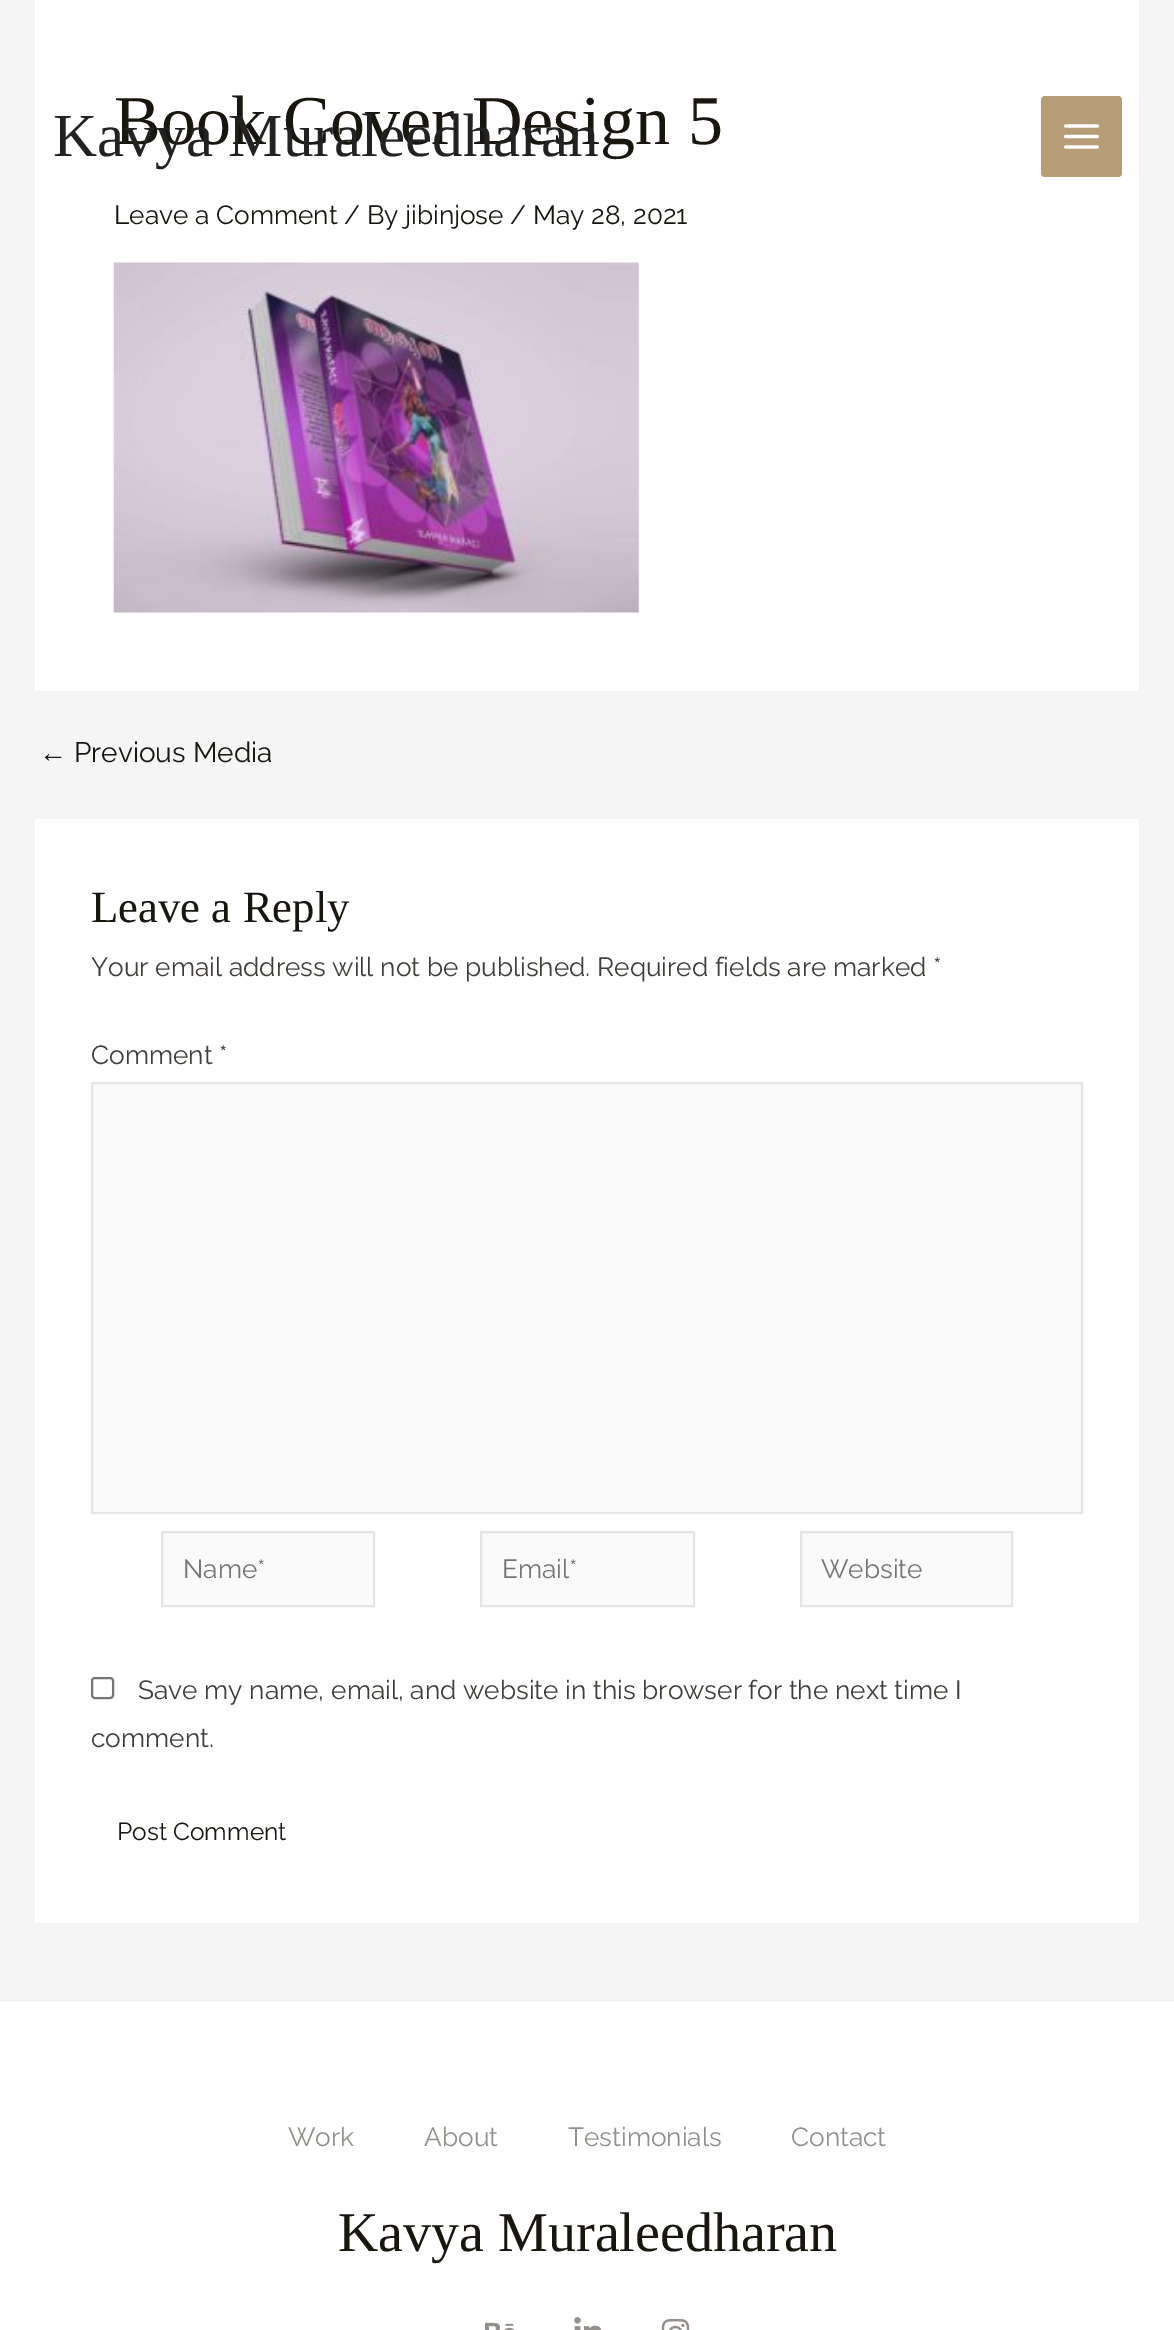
%!PS-Adobe-3.0
%%BoundingBox: 0 0 1174 2330
%%LanguageLevel: 3
%%Pages: 1
%%EndComments
%%BeginProlog
/setink { 3 { 255 div 3 1 roll } repeat setrgbcolor } def
/usefont { [ exch dup neg 0 0 3 -1 roll 0 0 ] selectfont } def
/drawtext { setink usefont moveto show } def
/fillbox { setink rectfill } def
/rrect { 5 dict begin { /r /h /w /y /x } { exch def } forall
  x r add y moveto x w add y 2 copy h add r arct x w add y h add x 1 index r arct
  x y h add x y r arct x y 2 copy exch w add exch r arct closepath end } def
/drawimage { 5 dict begin { /h /w /y /x /name } { exch def } forall
  gsave x y translate w h scale
  w h 8 [w 0 0 h 0 0] name (r) file false 3 colorimage grestore end } def
%%EndProlog
%%BeginSetup
<< /PageSize [1174 2330] >> setpagedevice
%%EndSetup
%%Page: 1 1
0 2330 translate 1 -1 scale
4 setmiterlimit
0 0 1174 2330 245 245 245 fillbox
35 0 1104 691 255 255 255 fillbox
(Book Cover Design 5) 114 144 /LiberationSerif-Regular 70 25 21 15 drawtext
(Leave a Comment / By jibinjose / May 28, 2021) 114 224 /Raleway-Regular 26.25 25 21 15 drawtext
(assets/img1.rgb) 113 262 526 351 drawimage
(←) 39 762 /LiberationSans-Regular 28 25 21 15 drawtext
(Previous Media) 74 762 /Raleway-Regular 28 25 21 15 drawtext
35 819 1104 1104 255 255 255 fillbox
(Leave a Reply) 91 922 /LiberationSerif-Regular 44.75 25 21 15 drawtext
(Your email address will not be published. Required fields are marked *) 91 976 /Raleway-Regular 26.25 65 62 58 drawtext
(Comment *) 91 1064 /Raleway-Regular 26.25 65 62 58 drawtext
250 250 250 setink
92 1083 moveto 1082 1083 lineto 1082 1513 lineto 92 1513 lineto closepath gsave fill grestore
229 229 229 setink
2 setlinewidth
stroke
250 250 250 setink
162 1532 moveto 374 1532 lineto 374 1606 lineto 162 1606 lineto closepath gsave fill grestore
229 229 229 setink
stroke
(Name*) 183 1578 /Raleway-Regular 26.25 117 117 117 drawtext
250 250 250 setink
481 1532 moveto 694 1532 lineto 694 1606 lineto 481 1606 lineto closepath gsave fill grestore
229 229 229 setink
stroke
(Email*) 502 1578 /Raleway-Regular 26.25 117 117 117 drawtext
250 250 250 setink
801 1532 moveto 1012 1532 lineto 1012 1606 lineto 801 1606 lineto closepath gsave fill grestore
229 229 229 setink
stroke
(Website) 821 1578 /Raleway-Regular 26.25 117 117 117 drawtext
118 118 118 setink
92 1678 21 20 3 rrect stroke
(Save my name, email, and website in this browser for the next time I) 138 1699 /Raleway-Regular 26.25 65 62 58 drawtext
(comment.) 91 1747 /Raleway-Regular 26.25 65 62 58 drawtext
(Post Comment) 117 1840 /Raleway-Regular 24.5 25 21 15 drawtext
(Kavya Muraleedharan) 53 156 /LiberationSerif-Regular 61.25 34 34 34 drawtext
182 157 120 setink
1041 96 81 81 4 rrect fill
(assets/img2.rgb) 1064 124 35 25 drawimage
0 2002 1174 328 255 255 255 fillbox
(Work) 288 2146 /Raleway-Regular 26.25 147 144 139 drawtext
(About) 424 2146 /Raleway-Regular 26.25 147 144 139 drawtext
(Testimonials) 568 2146 /Raleway-Regular 26.25 147 144 139 drawtext
(Contact) 791 2146 /Raleway-Regular 26.25 147 144 139 drawtext
(Kavya Muraleedharan) 338 2251 /LiberationSerif-Regular 56 25 21 15 drawtext
(assets/img3.rgb) 485 2322 30 8 drawimage
(assets/img4.rgb) 574 2317 28 13 drawimage
(assets/img5.rgb) 661 2318 29 12 drawimage
showpage
%%EOF
